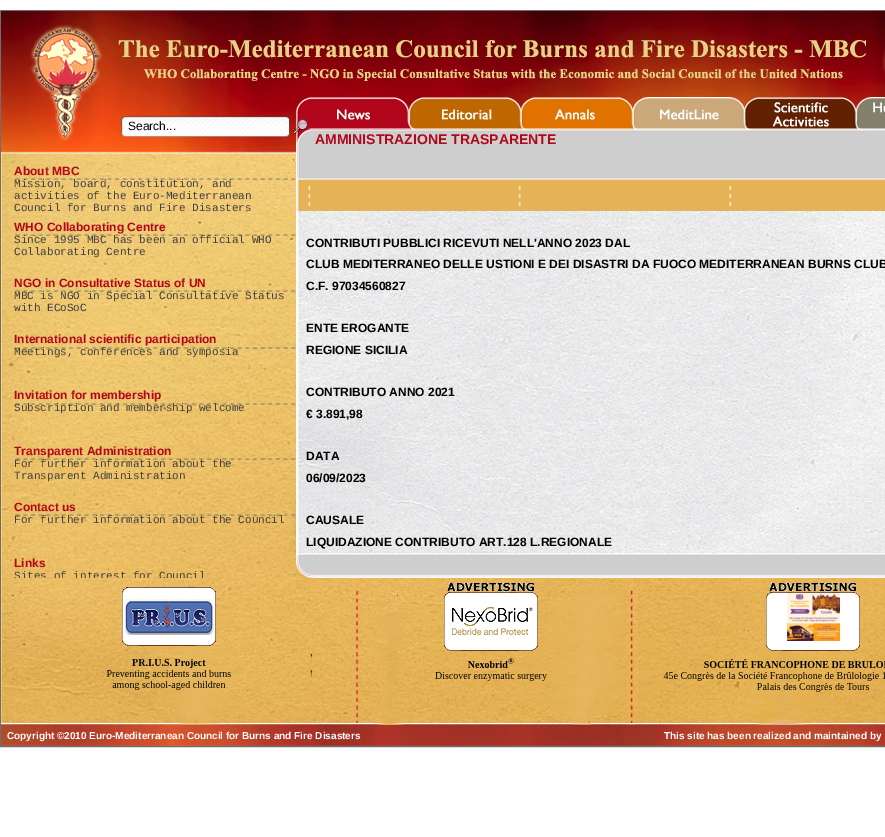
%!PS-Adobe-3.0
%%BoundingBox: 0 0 885 837
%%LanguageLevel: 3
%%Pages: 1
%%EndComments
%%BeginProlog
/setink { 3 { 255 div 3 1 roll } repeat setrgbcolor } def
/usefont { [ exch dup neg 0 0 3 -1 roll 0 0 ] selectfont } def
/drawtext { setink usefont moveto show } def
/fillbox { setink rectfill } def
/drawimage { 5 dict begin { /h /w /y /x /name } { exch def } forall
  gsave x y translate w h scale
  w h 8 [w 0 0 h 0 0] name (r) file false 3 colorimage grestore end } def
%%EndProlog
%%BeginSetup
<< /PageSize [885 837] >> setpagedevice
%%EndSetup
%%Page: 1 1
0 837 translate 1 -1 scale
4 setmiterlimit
0 0 885 837 255 255 255 fillbox
110 110 110 setink
0.5 10.5 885 736 rectstroke
(assets/img1.rgb) 1 11 884 85 drawimage
(assets/img2.rgb) 1 96 295 35 drawimage
(assets/img14.rgb) 1 131 295 447 drawimage
(assets/img3.rgb) 121 116 7 21 drawimage
(assets/img4.rgb) 128 116 155 21 drawimage
(Search...) 128 130 /LiberationSans-Regular 12 0 0 0 drawtext
(assets/img5.rgb) 283 116 7 21 drawimage
(assets/img7.rgb) 296 96 113 35 drawimage
(assets/img13.rgb) 296 131 589 46 drawimage
(assets/img6.rgb) 293 119 15 15 drawimage
(assets/img8.rgb) 409 96 111 35 drawimage
(assets/img9.rgb) 520 96 112 35 drawimage
(assets/img10.rgb) 632 96 112 35 drawimage
(assets/img11.rgb) 744 96 111 35 drawimage
(assets/img12.rgb) 855 96 30 35 drawimage
(AMMINISTRAZIONE TRASPARENTE) 315 144 /LiberationSans-Bold 14 177 6 27 drawtext
(About MBC) 14 175 /LiberationSans-Bold 12 177 6 27 drawtext
(Mission, board, constitution, and) 14 187 /LiberationMono-Regular 11 65 64 66 drawtext
(activities of the Euro-Mediterranean) 14 199 /LiberationMono-Regular 11 65 64 66 drawtext
(Council for Burns and Fire Disasters) 14 211 /LiberationMono-Regular 11 65 64 66 drawtext
(WHO Collaborating Centre) 14 231 /LiberationSans-Bold 12 177 6 27 drawtext
(Since 1995 MBC has been an official WHO) 14 243 /LiberationMono-Regular 11 65 64 66 drawtext
(Collaborating Centre) 14 255 /LiberationMono-Regular 11 65 64 66 drawtext
(NGO in Consultative Status of UN) 14 287 /LiberationSans-Bold 12 177 6 27 drawtext
(MBC is NGO in Special Consultative Status) 14 299 /LiberationMono-Regular 11 65 64 66 drawtext
(with ECoSoC) 14 311 /LiberationMono-Regular 11 65 64 66 drawtext
(International scientific participation) 14 343 /LiberationSans-Bold 12 177 6 27 drawtext
(Meetings, conferences and symposia) 14 355 /LiberationMono-Regular 11 65 64 66 drawtext
(Invitation for membership) 14 399 /LiberationSans-Bold 12 177 6 27 drawtext
(Subscription and membership welcome) 14 411 /LiberationMono-Regular 11 65 64 66 drawtext
(Transparent Administration) 14 455 /LiberationSans-Bold 12 177 6 27 drawtext
(For further information about the) 14 467 /LiberationMono-Regular 11 65 64 66 drawtext
(Transparent Administration) 14 479 /LiberationMono-Regular 11 65 64 66 drawtext
(Contact us) 14 511 /LiberationSans-Bold 12 177 6 27 drawtext
(For further information about the Council) 14 523 /LiberationMono-Regular 11 65 64 66 drawtext
(Links) 14 567 /LiberationSans-Bold 12 177 6 27 drawtext
(Sites of interest for Council) 14 579 /LiberationMono-Regular 11 65 64 66 drawtext
(assets/img15.rgb) 296 177 589 34 drawimage
(assets/img16.rgb) 297 211 588 344 drawimage
(CONTRIBUTI PUBBLICI RICEVUTI NELL'ANNO 2023 DAL) 306 247 /LiberationSans-Bold 12 0 0 0 drawtext
(CLUB MEDITERRANEO DELLE USTIONI E DEI DISASTRI DA FUOCO MEDITERRANEAN BURNS CLUB) 306 268 /LiberationSans-Bold 12 0 0 0 drawtext
(C.F. 97034560827) 306 290 /LiberationSans-Bold 12 0 0 0 drawtext
(ENTE EROGANTE) 306 332 /LiberationSans-Bold 12 0 0 0 drawtext
(REGIONE SICILIA) 306 354 /LiberationSans-Bold 12 0 0 0 drawtext
(CONTRIBUTO ANNO 2021) 306 396 /LiberationSans-Bold 12 0 0 0 drawtext
(€ 3.891,98) 306 418 /LiberationSans-Bold 12 0 0 0 drawtext
(DATA) 306 460 /LiberationSans-Bold 12 0 0 0 drawtext
(06/09/2023) 306 482 /LiberationSans-Bold 12 0 0 0 drawtext
(CAUSALE) 306 524 /LiberationSans-Bold 12 0 0 0 drawtext
(LIQUIDAZIONE CONTRIBUTO ART.128 L.REGIONALE) 306 546 /LiberationSans-Bold 12 0 0 0 drawtext
(assets/img17.rgb) 296 555 589 23 drawimage
(assets/img18.rgb) 1 578 884 147 drawimage
(assets/img19.rgb) 1 725 884 21 drawimage
(Copyright ©2010 Euro-Mediterranean Council for Burns and Fire Disasters) 7 739 /LiberationSans-Bold 10 255 255 255 drawtext
(This site has been realized and maintained by) 664 739 /LiberationSans-Bold 10 255 255 255 drawtext
showpage
%%EOF
